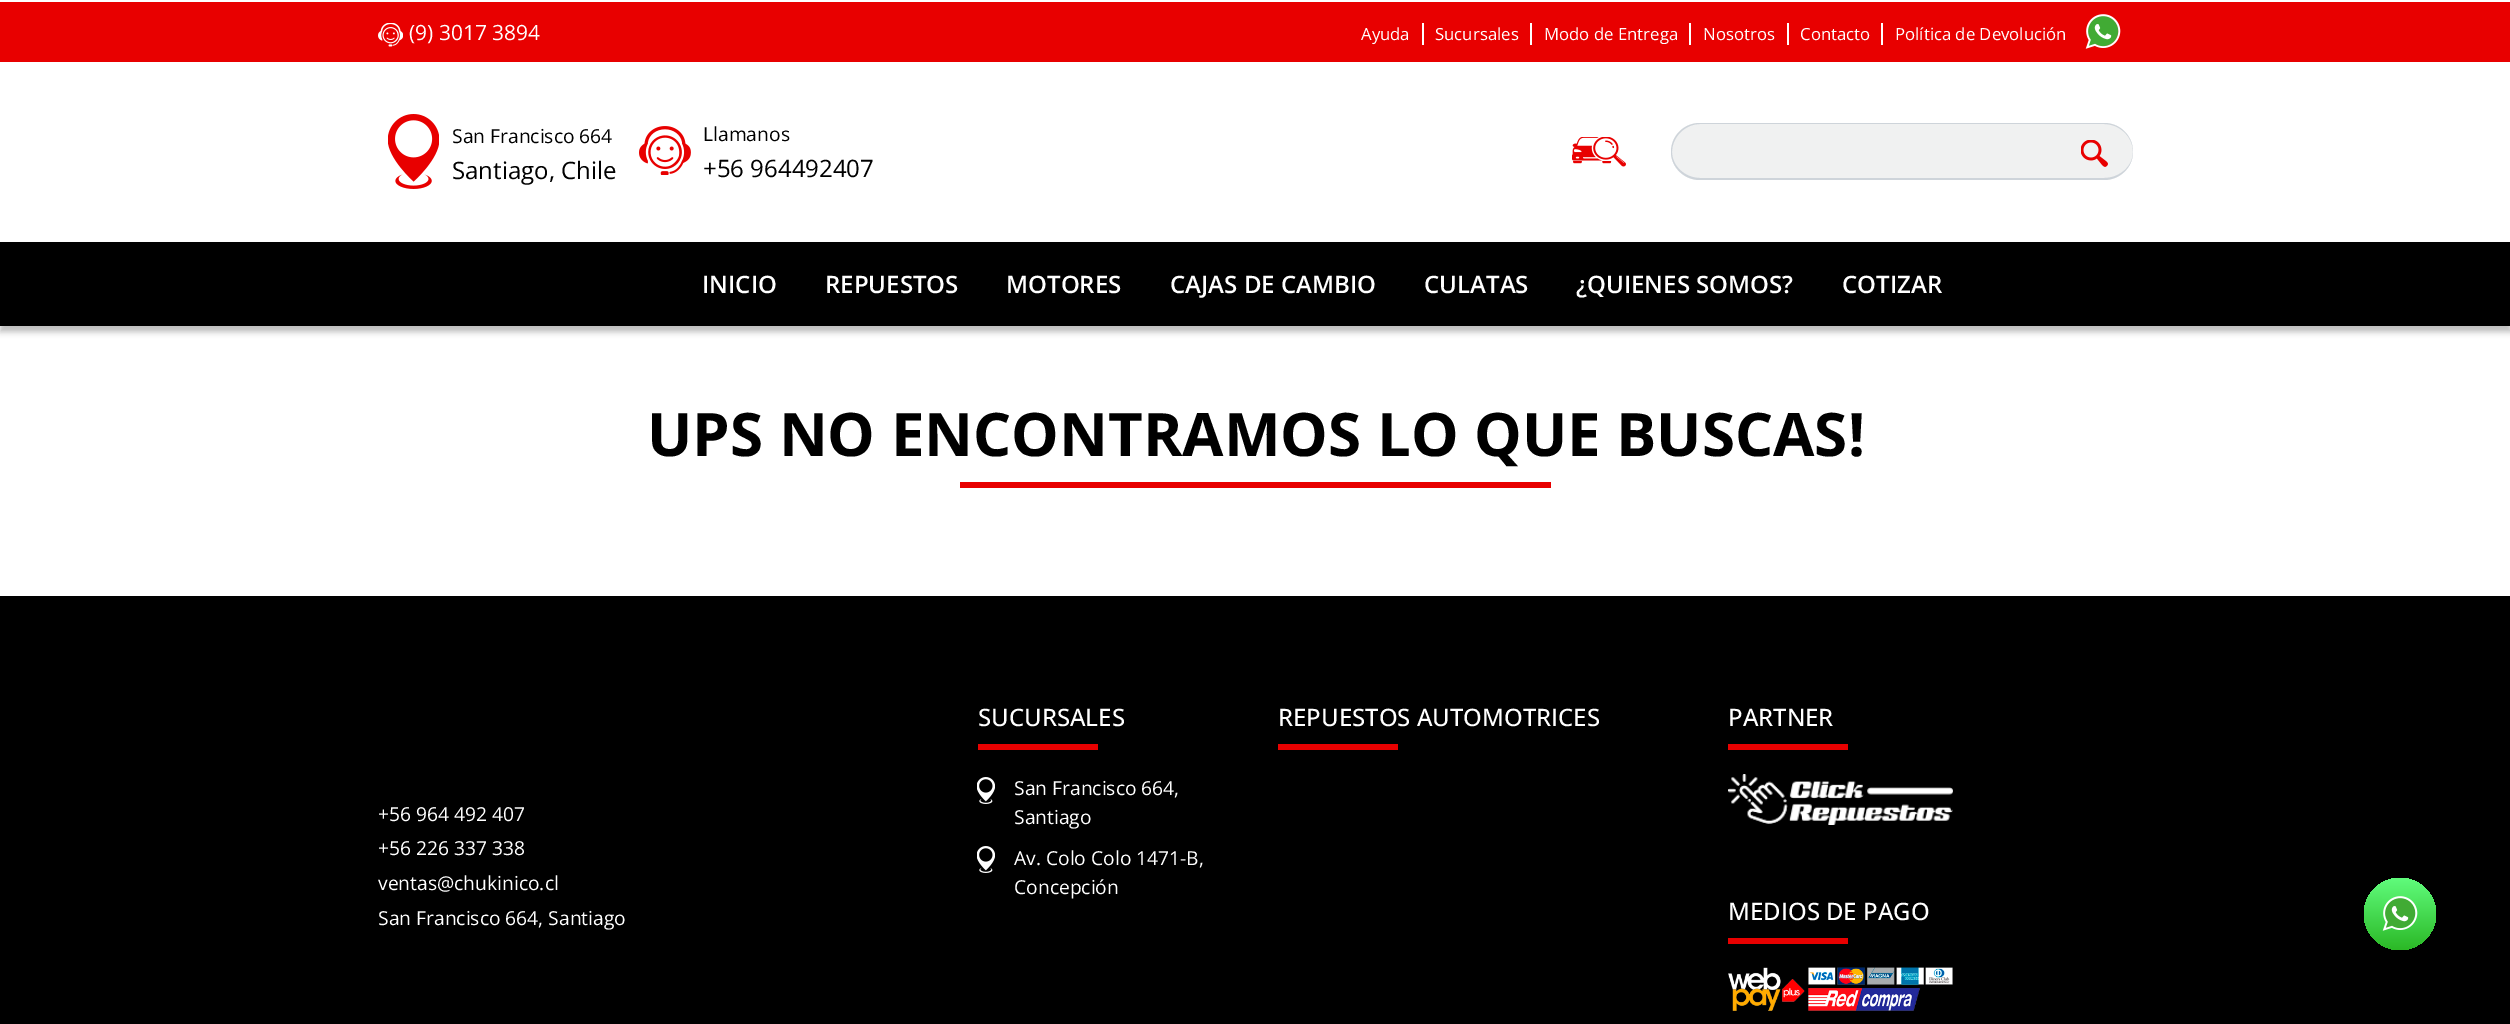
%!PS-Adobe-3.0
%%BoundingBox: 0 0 2510 1024
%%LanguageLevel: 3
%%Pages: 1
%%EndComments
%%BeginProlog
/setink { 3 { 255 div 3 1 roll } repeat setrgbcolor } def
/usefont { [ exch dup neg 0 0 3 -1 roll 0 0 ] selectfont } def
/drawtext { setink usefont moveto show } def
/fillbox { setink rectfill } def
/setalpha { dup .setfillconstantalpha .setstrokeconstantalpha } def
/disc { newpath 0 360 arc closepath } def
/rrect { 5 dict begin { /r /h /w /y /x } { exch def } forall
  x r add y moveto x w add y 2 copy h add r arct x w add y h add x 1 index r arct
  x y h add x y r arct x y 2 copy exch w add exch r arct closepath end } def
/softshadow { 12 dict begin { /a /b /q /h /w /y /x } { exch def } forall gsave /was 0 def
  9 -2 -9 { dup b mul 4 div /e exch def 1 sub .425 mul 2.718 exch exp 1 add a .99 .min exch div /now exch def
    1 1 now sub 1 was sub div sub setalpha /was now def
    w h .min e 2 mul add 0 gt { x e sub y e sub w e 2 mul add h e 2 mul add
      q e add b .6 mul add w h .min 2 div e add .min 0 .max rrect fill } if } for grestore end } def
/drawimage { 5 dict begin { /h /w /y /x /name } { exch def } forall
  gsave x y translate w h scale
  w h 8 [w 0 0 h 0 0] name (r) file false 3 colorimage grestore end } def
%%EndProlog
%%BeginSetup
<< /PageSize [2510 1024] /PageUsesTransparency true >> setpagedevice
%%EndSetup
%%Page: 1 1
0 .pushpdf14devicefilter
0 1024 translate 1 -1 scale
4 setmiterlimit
0 0 2510 1024 255 255 255 fillbox
0 2 2510 60 232 0 0 fillbox
(assets/img1.rgb) 378 23 25 24 drawimage
(\(9\) 3017 3894) 409 40 /OpenSans-Regular 21 255 255 255 drawtext
(Ayuda) 1361 40 /OpenSans-Regular 16.75 255 255 255 drawtext
(Sucursales) 1435 40 /OpenSans-Regular 16.75 255 255 255 drawtext
1422 23 2 22 255 255 255 fillbox
(Modo de Entrega) 1544 40 /OpenSans-Regular 16.75 255 255 255 drawtext
1530 23 2 22 255 255 255 fillbox
(Nosotros) 1703 40 /OpenSans-Regular 16.75 255 255 255 drawtext
1689 23 2 22 255 255 255 fillbox
(Contacto) 1800 40 /OpenSans-Regular 16.75 255 255 255 drawtext
1787 23 2 22 255 255 255 fillbox
(Política de Devolución) 1895 40 /OpenSans-Regular 16.75 255 255 255 drawtext
1881 23 2 22 255 255 255 fillbox
(assets/img2.rgb) 2085 14 36 35 drawimage
(assets/img3.rgb) 388 114 51 75 drawimage
(San Francisco 664) 452 143 /OpenSans-Regular 19.25 0 0 0 drawtext
(Santiago, Chile) 452 179 /OpenSans-Regular 24 0 0 0 drawtext
(assets/img4.rgb) 639 126 52 49 drawimage
(Llamanos) 703 141 /OpenSans-Regular 19.25 0 0 0 drawtext
(+56 964492407) 703 177 /OpenSans-Regular 24 0 0 0 drawtext
(assets/img5.rgb) 1572 137 54 30 drawimage
240 241 241 setink
1671 123 462 57 28.5 rrect fill
206 212 218 setink
1700 123 moveto 2104 123 lineto 2120 123 2133 136 2133 152 curveto 2133 167 2120 180 2104 180 curveto 1700 180 lineto 1684 180 1671 167 1671 152 curveto 1671 136 1684 123 1700 123 curveto closepath 1700 124 moveto 2104 124 lineto 2120 124 2133 137 2133 152 curveto 2133 166 2120 178 2104 178 curveto 1700 178 lineto 1685 178 1672 166 1672 152 curveto 1672 137 1685 124 1700 124 curveto closepath eofill
(assets/img6.rgb) 2081 140 27 27 drawimage
0 0 0 setink
0 248 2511 84 0 3 0.25 softshadow
0 242 2510 84 0 0 0 fillbox
(INICIO) 702 293 /OpenSans-SemiBold 24 255 255 255 drawtext
(REPUESTOS) 825 293 /OpenSans-SemiBold 24 255 255 255 drawtext
(MOTORES) 1006 293 /OpenSans-SemiBold 24 255 255 255 drawtext
(CAJAS DE CAMBIO) 1170 293 /OpenSans-SemiBold 24 255 255 255 drawtext
(CULATAS) 1424 293 /OpenSans-SemiBold 24 255 255 255 drawtext
(¿QUIENES SOMOS?) 1576 293 /OpenSans-SemiBold 24 255 255 255 drawtext
(COTIZAR) 1842 293 /OpenSans-SemiBold 24 255 255 255 drawtext
(UPS NO ENCONTRAMOS LO QUE BUSCAS!) 647 456 /OpenSans-Bold 60 0 0 0 drawtext
960 482 591 6 232 0 0 fillbox
0 596 2510 428 0 0 0 fillbox
(+56 964 492 407) 378 821 /OpenSans-Regular 19.25 255 255 255 drawtext
(+56 226 337 338) 378 855 /OpenSans-Regular 19.25 255 255 255 drawtext
(ventas@chukinico.cl) 378 890 /OpenSans-Regular 19.25 255 255 255 drawtext
(San Francisco 664, Santiago) 378 925 /OpenSans-Regular 19.25 255 255 255 drawtext
(SUCURSALES) 978 726 /OpenSans-Medium 24 255 255 255 drawtext
978 744 120 6 232 0 0 fillbox
(assets/img7.rgb) 977 777 18 27 drawimage
(San Francisco 664,) 1014 795 /OpenSans-Regular 19.25 255 255 255 drawtext
(Santiago) 1014 824 /OpenSans-Regular 19.25 255 255 255 drawtext
(assets/img7.rgb) 977 846 18 27 drawimage
(Av. Colo Colo 1471-B,) 1014 865 /OpenSans-Regular 19.25 255 255 255 drawtext
(Concepción) 1014 894 /OpenSans-Regular 19.25 255 255 255 drawtext
(REPUESTOS AUTOMOTRICES) 1278 726 /OpenSans-Medium 24 255 255 255 drawtext
1278 744 120 6 232 0 0 fillbox
(PARTNER) 1728 726 /OpenSans-Medium 24 255 255 255 drawtext
1728 744 120 6 232 0 0 fillbox
(assets/img8.rgb) 1728 774 225 51 drawimage
(MEDIOS DE PAGO) 1728 920 /OpenSans-Medium 24 255 255 255 drawtext
1728 938 120 6 232 0 0 fillbox
(assets/img9.rgb) 1728 967 225 44 drawimage
gsave 2400 914 36 disc clip newpath
<< /ShadingType 2 /ColorSpace /DeviceRGB /Coords [2400 878 2400 950] /Extend [true true] /Function << /FunctionType 2 /Domain [0 1] /C0 [0.376 0.988 0.486] /C1 [0.169 0.722 0.149] /N 1 >> >> shfill grestore
(assets/img10.rgb) 2382 896 36 35 drawimage
.poppdf14devicefilter showpage
%%EOF
